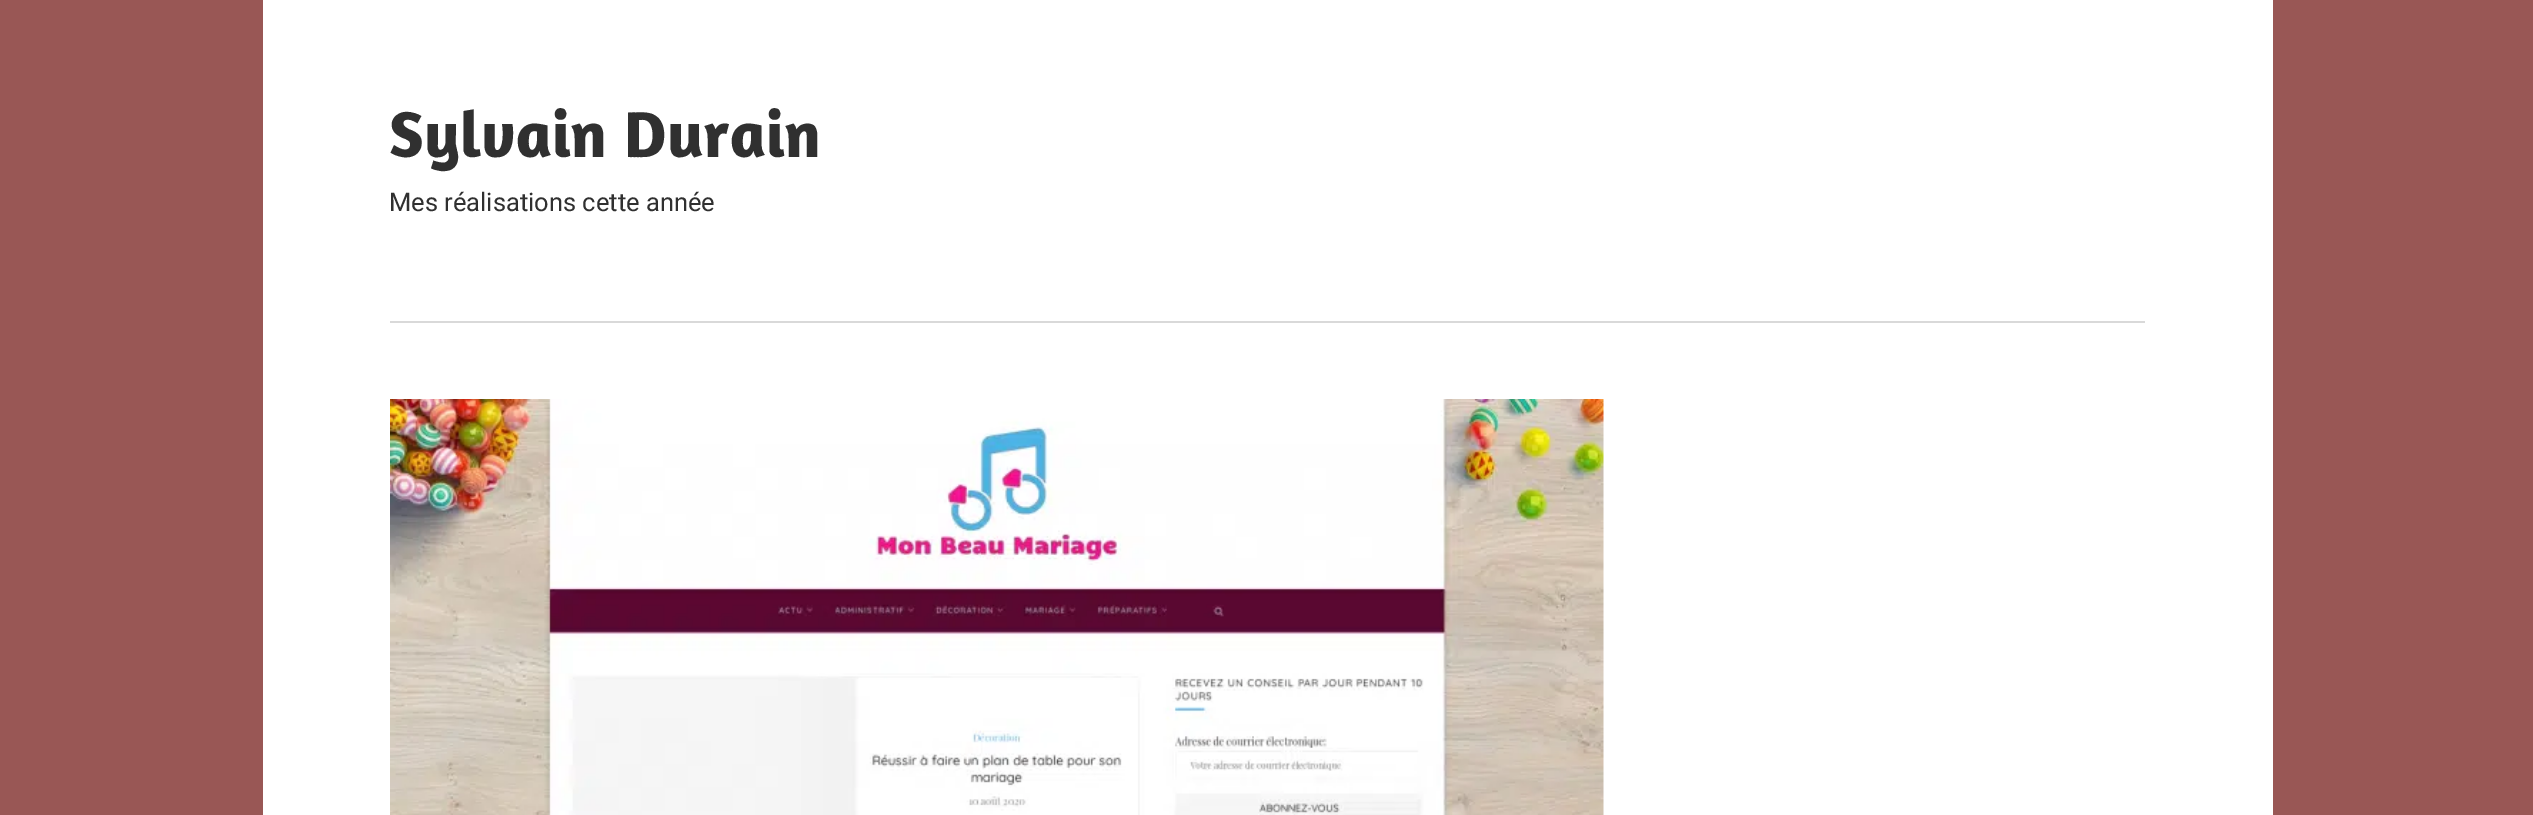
%!PS-Adobe-3.0
%%BoundingBox: 0 0 2533 815
%%LanguageLevel: 3
%%Pages: 1
%%EndComments
%%BeginProlog
/setink { 3 { 255 div 3 1 roll } repeat setrgbcolor } def
/usefont { [ exch dup neg 0 0 3 -1 roll 0 0 ] selectfont } def
/drawtext { setink usefont moveto show } def
/fillbox { setink rectfill } def
/drawimage { 5 dict begin { /h /w /y /x /name } { exch def } forall
  gsave x y translate w h scale
  w h 8 [w 0 0 h 0 0] name (r) file false 3 colorimage grestore end } def
%%EndProlog
%%BeginSetup
<< /PageSize [2533 815] >> setpagedevice
%%EndSetup
%%Page: 1 1
0 815 translate 1 -1 scale
4 setmiterlimit
0 0 2533 815 153 87 85 fillbox
263 0 2010 815 255 255 255 fillbox
(Sylvain Durain) 389 157 /Amaranth-Bold 66 48 48 48 drawtext
(Mes réalisations cette année) 389 211 /Roboto-Regular 25.5 48 48 48 drawtext
390 321 1755 2 217 217 217 fillbox
(assets/img1.rgb) 390 399 1214 416 drawimage
showpage
%%EOF
